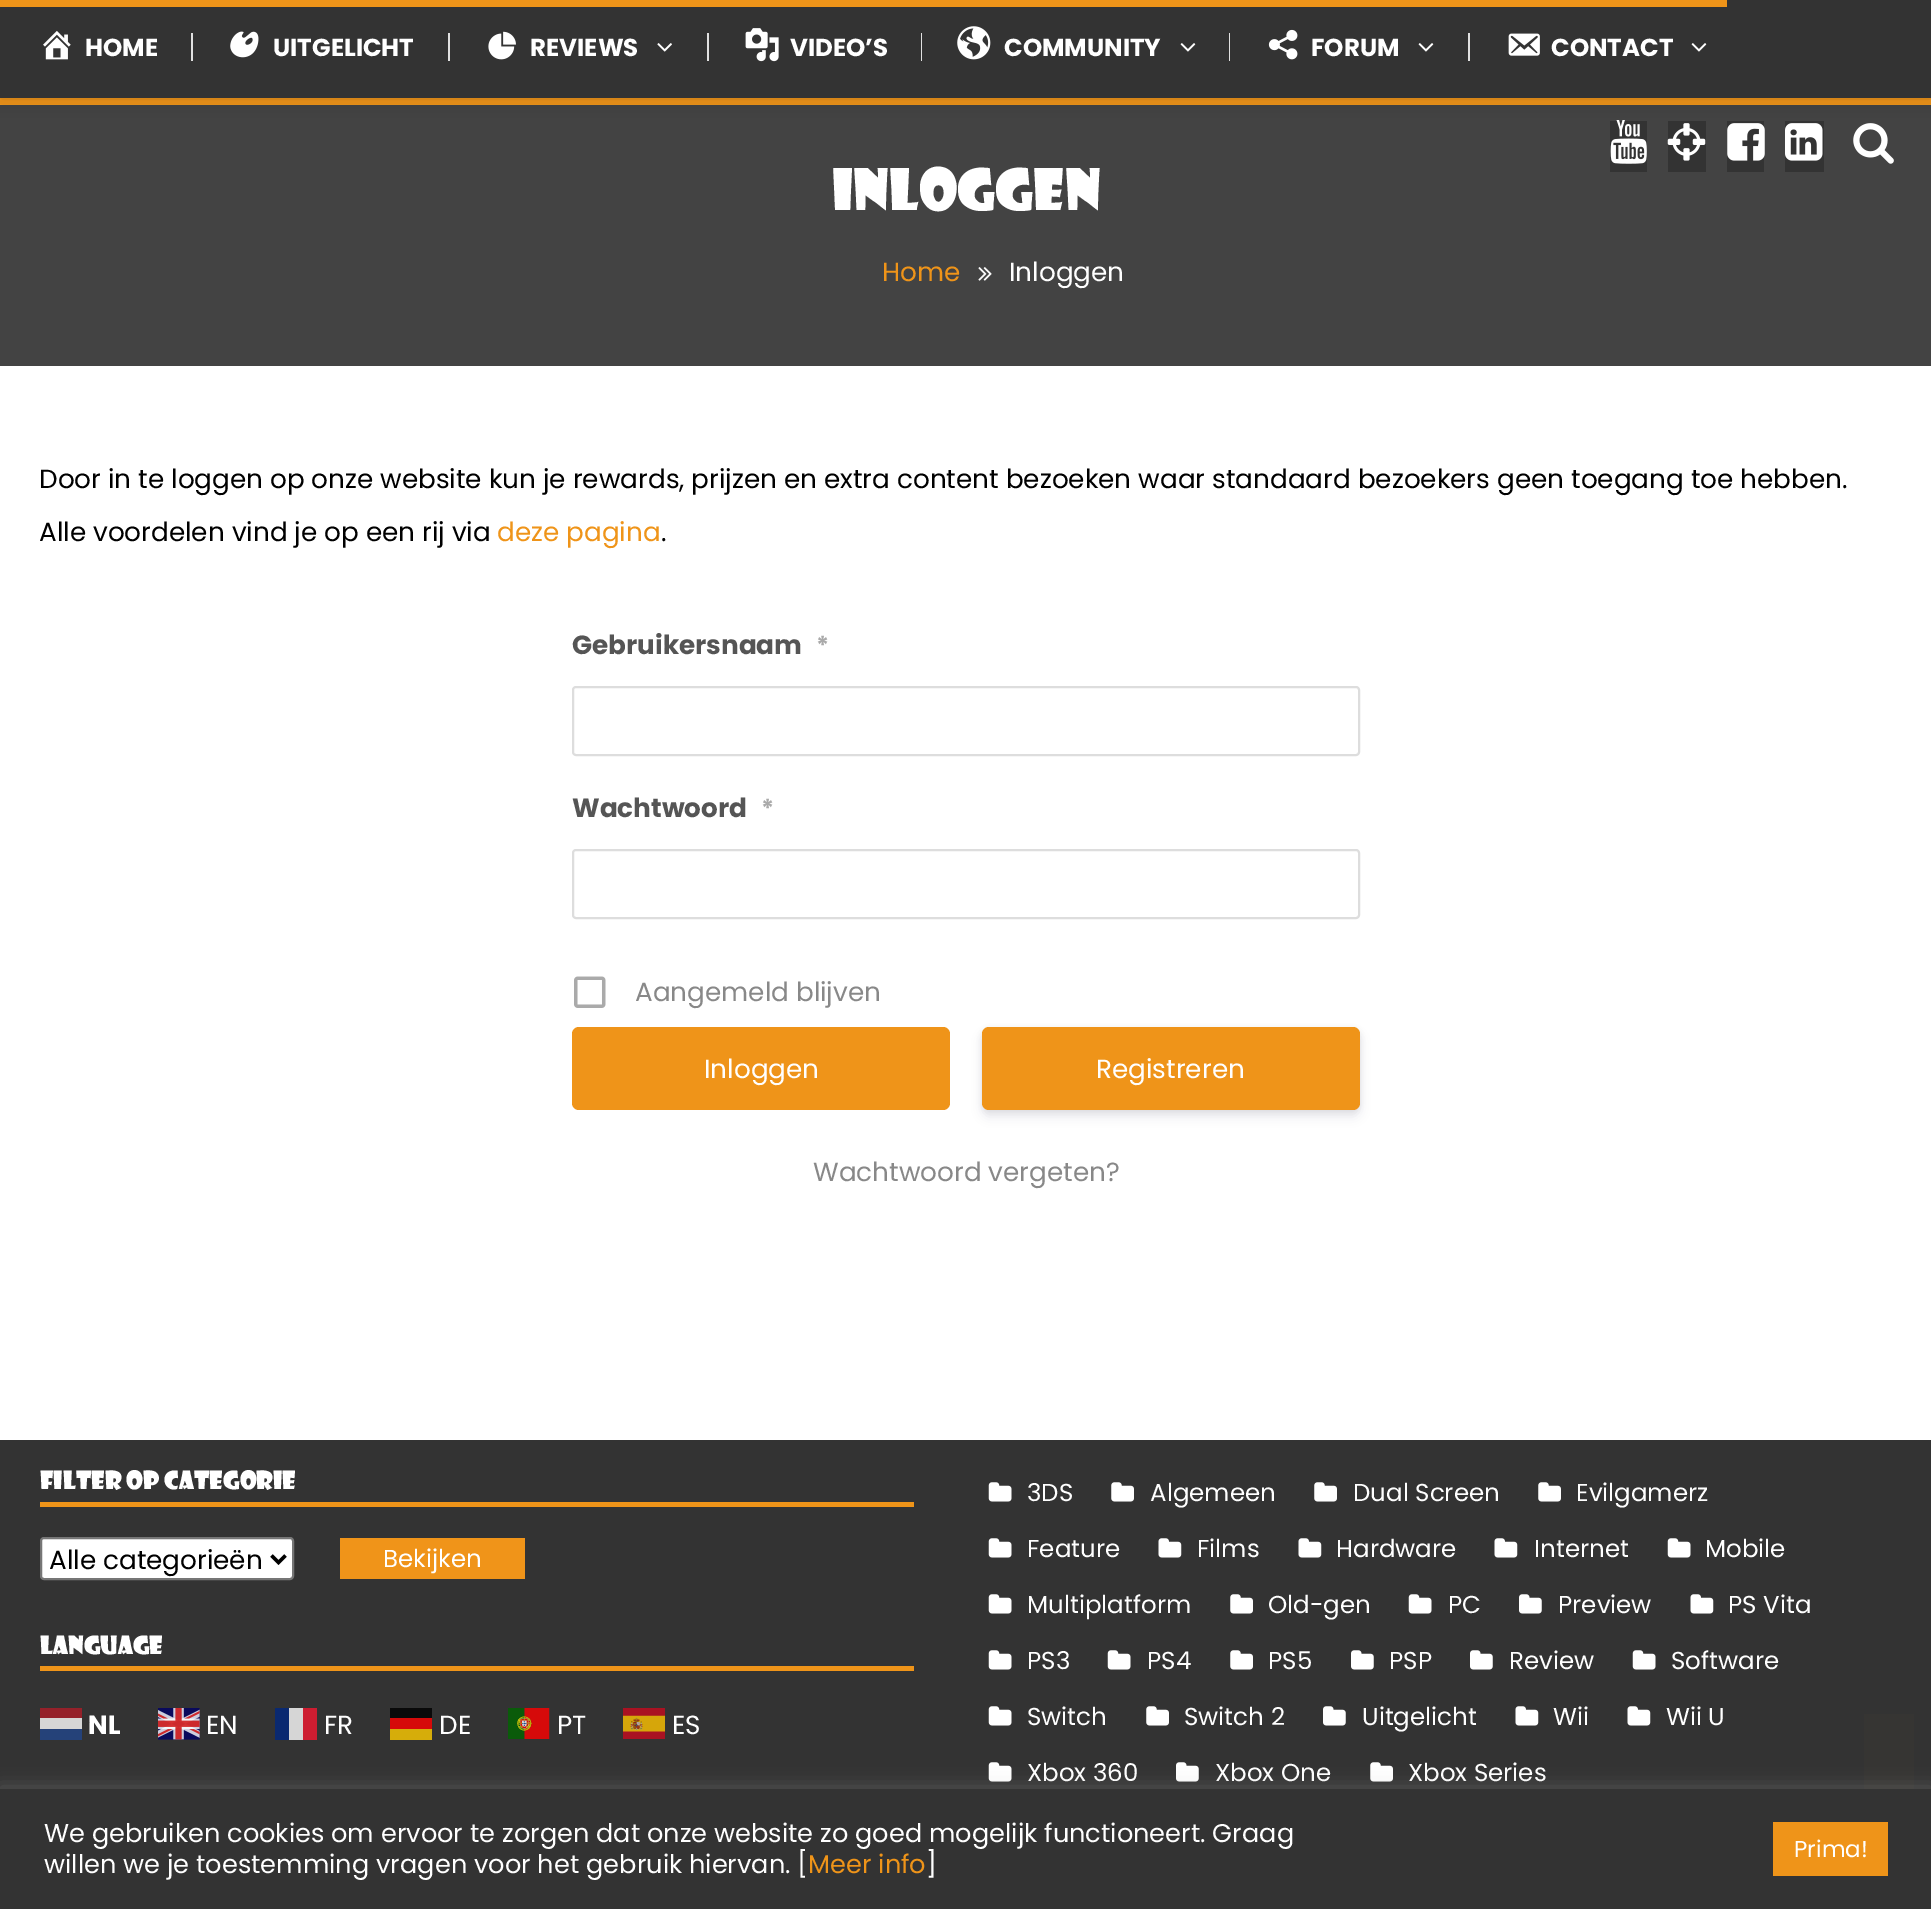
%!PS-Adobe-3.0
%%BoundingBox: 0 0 1931 1909
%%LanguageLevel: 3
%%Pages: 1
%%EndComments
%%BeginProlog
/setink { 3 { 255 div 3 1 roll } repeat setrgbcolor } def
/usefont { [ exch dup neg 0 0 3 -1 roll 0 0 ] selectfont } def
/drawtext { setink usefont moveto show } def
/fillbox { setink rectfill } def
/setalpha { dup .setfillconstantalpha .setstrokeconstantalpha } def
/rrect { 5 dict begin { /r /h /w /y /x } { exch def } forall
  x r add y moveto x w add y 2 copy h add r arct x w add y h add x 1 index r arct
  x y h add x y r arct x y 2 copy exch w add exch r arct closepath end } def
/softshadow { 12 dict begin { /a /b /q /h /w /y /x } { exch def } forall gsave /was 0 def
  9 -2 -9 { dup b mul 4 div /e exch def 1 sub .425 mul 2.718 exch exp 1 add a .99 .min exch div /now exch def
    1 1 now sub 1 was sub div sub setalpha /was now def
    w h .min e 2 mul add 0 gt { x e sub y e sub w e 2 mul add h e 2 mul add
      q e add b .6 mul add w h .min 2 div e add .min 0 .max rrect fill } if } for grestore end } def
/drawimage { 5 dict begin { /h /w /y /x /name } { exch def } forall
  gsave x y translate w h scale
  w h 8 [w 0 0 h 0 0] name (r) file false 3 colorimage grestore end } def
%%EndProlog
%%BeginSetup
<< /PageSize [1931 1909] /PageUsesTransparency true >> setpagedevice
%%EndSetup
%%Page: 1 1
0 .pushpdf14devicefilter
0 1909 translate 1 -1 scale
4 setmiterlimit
0 0 1931 1909 255 255 255 fillbox
0 105 1931 261 67 67 67 fillbox
0 98 1931 7 239 148 25 fillbox
0 0 0 setink
0 0 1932 98 0 9 0.2 softshadow
0 0 1931 98 51 51 51 fillbox
0 0 1727 7 239 148 25 fillbox
(assets/img1.rgb) 43 30 28 30 drawimage
(HOME) 85 56 /Poppins-Bold 24.5 255 255 255 drawtext
191 33 2 28 225 225 225 fillbox
(assets/img2.rgb) 230 31 29 27 drawimage
(UITGELICHT) 273 56 /Poppins-Bold 24.5 255 255 255 drawtext
448 33 2 28 225 225 225 fillbox
(assets/img3.rgb) 488 31 28 29 drawimage
(REVIEWS) 530 56 /Poppins-Bold 24.5 255 255 255 drawtext
(assets/img4.rgb) 657 43 15 9 drawimage
707 33 2 28 225 225 225 fillbox
(assets/img5.rgb) 745 28 34 34 drawimage
(VIDEO’S) 790 56 /Poppins-Bold 24.5 255 255 255 drawtext
921 33 1 28 225 225 225 fillbox
(assets/img6.rgb) 957 26 34 34 drawimage
(COMMUNITY) 1004 56 /Poppins-Bold 24.5 255 255 255 drawtext
(assets/img7.rgb) 1180 43 16 9 drawimage
1229 33 1 28 225 225 225 fillbox
(assets/img8.rgb) 1268 29 30 31 drawimage
(FORUM) 1311 56 /Poppins-Bold 24.5 255 255 255 drawtext
(assets/img7.rgb) 1418 43 16 9 drawimage
1468 33 2 28 225 225 225 fillbox
(assets/img9.rgb) 1508 33 32 23 drawimage
(CONTACT) 1551 56 /Poppins-Bold 24.5 255 255 255 drawtext
(assets/img7.rgb) 1691 43 16 9 drawimage
1610 121 37 51 51 51 51 fillbox
(assets/img10.rgb) 1610 120 37 44 drawimage
1668 121 38 51 51 51 51 fillbox
(assets/img11.rgb) 1667 123 39 38 drawimage
1727 121 37 51 51 51 51 fillbox
(assets/img12.rgb) 1727 123 38 38 drawimage
1785 121 39 51 51 51 51 fillbox
(assets/img13.rgb) 1785 123 38 38 drawimage
(assets/img14.rgb) 1853 123 41 41 drawimage
(Inloggen) 832 210 /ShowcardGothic-Regular 56 255 255 255 drawtext
(Home) 882 281 /Poppins-Regular 26.25 239 148 25 drawtext
(assets/img15.rgb) 978 267 14 14 drawimage
(Inloggen) 1009 281 /Poppins-Regular 26.25 255 255 255 drawtext
(Door in te loggen op onze website kun je rewards, prijzen en extra content bezoeken waar standaard bezoekers geen toegang toe hebben.) 39 488 /Poppins-Regular 26.25 0 0 0 drawtext
(Alle voordelen vind je op een rij via) 39 541 /Poppins-Regular 26.25 0 0 0 drawtext
(deze pagina) 497 541 /Poppins-Regular 26.25 239 148 25 drawtext
(.) 661 541 /Poppins-Regular 26.25 0 0 0 drawtext
(Gebruikersnaam) 572 654 /Poppins-Bold 26.25 85 85 85 drawtext
(*) 816 654 /Poppins-Bold 24.5 170 170 170 drawtext
221 221 221 setink
2 setlinewidth
573 687 786 68 3 rrect stroke
(Wachtwoord) 572 817 /Poppins-Bold 26.25 85 85 85 drawtext
(*) 761 817 /Poppins-Bold 24.5 170 170 170 drawtext
221 221 221 setink
573 850 786 68 3 rrect stroke
(assets/img16.rgb) 574 976 32 32 drawimage
(Aangemeld blijven) 635 1001 /Poppins-Regular 26.25 136 136 136 drawtext
239 148 25 setink
572 1027 378 83 7 rrect fill
(Inloggen) 704 1078 /Poppins-Regular 26.25 255 255 255 drawtext
0 0 0 setink
982 1029 378 82 7 2.5 0.08 softshadow
50 50 93 setink
982 1034 378 83 7 5 0.11 softshadow
239 148 25 setink
982 1027 378 83 7 rrect fill
(Registreren) 1096 1078 /Poppins-Regular 26.25 255 255 255 drawtext
(Wachtwoord vergeten?) 813 1181 /Poppins-Regular 26.25 136 136 136 drawtext
0 1440 1931 349 51 51 51 fillbox
40 1502 874 5 239 148 25 fillbox
(FILTER OP CATEGORIE) 40 1489 /ShowcardGothic-Regular 24.5 255 255 255 drawtext
41 1538 252 41 3 rrect gsave fill grestore
118 118 118 setink
stroke
0 0 0 setink
3.5 setlinewidth
271.5 1555.5 moveto 278.5 1562.5 lineto 285.5 1555.5 lineto stroke
(Alle categorieën) 49 1569 /Poppins-Regular 26.25 0 0 0 drawtext
340 1538 185 41 240 148 25 fillbox
(Bekijken) 383 1567 /Poppins-Regular 24.5 255 255 255 drawtext
40 1666 874 5 239 148 25 fillbox
(LANGUAGE) 40 1654 /ShowcardGothic-Regular 24.5 255 255 255 drawtext
(NL) 88 1734 /Poppins-Bold 26.25 255 255 255 drawtext
40 1718 42 11 214 214 214 fillbox
40 1729 42 11 37 66 121 fillbox
40 1708 42 10 149 33 42 fillbox
(assets/img17.rgb) 158 1708 42 32 drawimage
(EN) 206 1734 /Poppins-Regular 26.25 255 255 255 drawtext
(FR) 324 1734 /Poppins-Regular 26.25 255 255 255 drawtext
289 1708 14 32 214 214 214 fillbox
275 1708 14 32 10 41 112 fillbox
303 1708 14 32 205 29 49 fillbox
(DE) 439 1734 /Poppins-Regular 26.25 255 255 255 drawtext
390 1729 42 11 214 173 10 fillbox
390 1708 42 10 10 10 10 fillbox
390 1718 42 11 214 10 10 fillbox
(assets/img18.rgb) 508 1708 42 31 drawimage
(PT) 557 1734 /Poppins-Regular 26.25 255 255 255 drawtext
(assets/img19.rgb) 623 1708 42 31 drawimage
(ES) 672 1734 /Poppins-Regular 26.25 255 255 255 drawtext
(assets/img20.rgb) 988 1482 24 20 drawimage
(3DS) 1027 1501 /Poppins-Regular 24.5 255 255 255 drawtext
(assets/img21.rgb) 1111 1482 23 20 drawimage
(Algemeen) 1150 1501 /Poppins-Regular 24.5 255 255 255 drawtext
(assets/img21.rgb) 1314 1482 23 20 drawimage
(Dual Screen) 1353 1501 /Poppins-Regular 24.5 255 255 255 drawtext
(assets/img21.rgb) 1538 1482 23 20 drawimage
(Evilgamerz) 1576 1501 /Poppins-Regular 24.5 255 255 255 drawtext
(assets/img20.rgb) 988 1538 24 20 drawimage
(Feature) 1027 1557 /Poppins-Regular 24.5 255 255 255 drawtext
(assets/img22.rgb) 1158 1538 24 20 drawimage
(Films) 1197 1557 /Poppins-Regular 24.5 255 255 255 drawtext
(assets/img22.rgb) 1298 1538 24 20 drawimage
(Hardware) 1336 1557 /Poppins-Regular 24.5 255 255 255 drawtext
(assets/img22.rgb) 1494 1538 24 20 drawimage
(Internet) 1534 1557 /Poppins-Regular 24.5 255 255 255 drawtext
(assets/img20.rgb) 1667 1538 24 20 drawimage
(Mobile) 1705 1557 /Poppins-Regular 24.5 255 255 255 drawtext
(assets/img20.rgb) 988 1594 24 20 drawimage
(Multiplatform) 1027 1613 /Poppins-Regular 24.5 255 255 255 drawtext
(assets/img21.rgb) 1230 1594 23 20 drawimage
(Old-gen) 1268 1613 /Poppins-Regular 24.5 255 255 255 drawtext
(assets/img20.rgb) 1408 1594 24 20 drawimage
(PC) 1448 1613 /Poppins-Regular 24.5 255 255 255 drawtext
(assets/img23.rgb) 1519 1594 23 20 drawimage
(Preview) 1558 1613 /Poppins-Regular 24.5 255 255 255 drawtext
(assets/img22.rgb) 1690 1594 24 20 drawimage
(PS Vita) 1728 1613 /Poppins-Regular 24.5 255 255 255 drawtext
(assets/img20.rgb) 988 1650 24 20 drawimage
(PS3) 1027 1669 /Poppins-Regular 24.5 255 255 255 drawtext
(assets/img20.rgb) 1107 1650 24 20 drawimage
(PS4) 1147 1669 /Poppins-Regular 24.5 255 255 255 drawtext
(assets/img21.rgb) 1230 1650 23 20 drawimage
(PS5) 1268 1669 /Poppins-Regular 24.5 255 255 255 drawtext
(assets/img23.rgb) 1351 1650 23 20 drawimage
(PSP) 1389 1669 /Poppins-Regular 24.5 255 255 255 drawtext
(assets/img23.rgb) 1470 1650 23 20 drawimage
(Review) 1509 1669 /Poppins-Regular 24.5 255 255 255 drawtext
(assets/img20.rgb) 1632 1650 24 20 drawimage
(Software) 1671 1669 /Poppins-Regular 24.5 255 255 255 drawtext
(assets/img20.rgb) 988 1706 24 20 drawimage
(Switch) 1027 1725 /Poppins-Regular 24.5 255 255 255 drawtext
(assets/img21.rgb) 1146 1706 23 20 drawimage
(Switch 2) 1184 1725 /Poppins-Regular 24.5 255 255 255 drawtext
(assets/img23.rgb) 1323 1706 23 20 drawimage
(Uitgelicht) 1362 1725 /Poppins-Regular 24.5 255 255 255 drawtext
(assets/img22.rgb) 1515 1706 24 20 drawimage
(Wii) 1553 1725 /Poppins-Regular 24.5 255 255 255 drawtext
(assets/img22.rgb) 1627 1706 24 20 drawimage
(Wii U) 1666 1725 /Poppins-Regular 24.5 255 255 255 drawtext
(assets/img20.rgb) 988 1762 24 20 drawimage
(Xbox 360) 1027 1781 /Poppins-Regular 24.5 255 255 255 drawtext
(assets/img23.rgb) 1176 1762 23 20 drawimage
(Xbox One) 1215 1781 /Poppins-Regular 24.5 255 255 255 drawtext
(assets/img21.rgb) 1370 1762 23 20 drawimage
(Xbox Series) 1408 1781 /Poppins-Regular 24.5 255 255 255 drawtext
1864 1714 50 75 54 53 51 fillbox
172 171 171 setink
0 1787 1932 121 0 9 0.3 softshadow
0 1789 1931 120 51 51 51 fillbox
(We gebruiken cookies om ervoor te zorgen dat onze website zo goed mogelijk functioneert. Graag) 44 1842 /Poppins-Regular 25.65 255 255 255 drawtext
(willen we je toestemming vragen voor het gebruik hiervan. [) 44 1873 /Poppins-Regular 25.65 255 255 255 drawtext
(Meer info) 808 1873 /Poppins-Regular 25.65 239 148 25 drawtext
(]) 926 1873 /Poppins-Regular 25.65 255 255 255 drawtext
1773 1822 115 54 239 148 25 fillbox
(Prima!) 1794 1857 /Poppins-Regular 23 255 255 255 drawtext
.poppdf14devicefilter showpage
%%EOF
